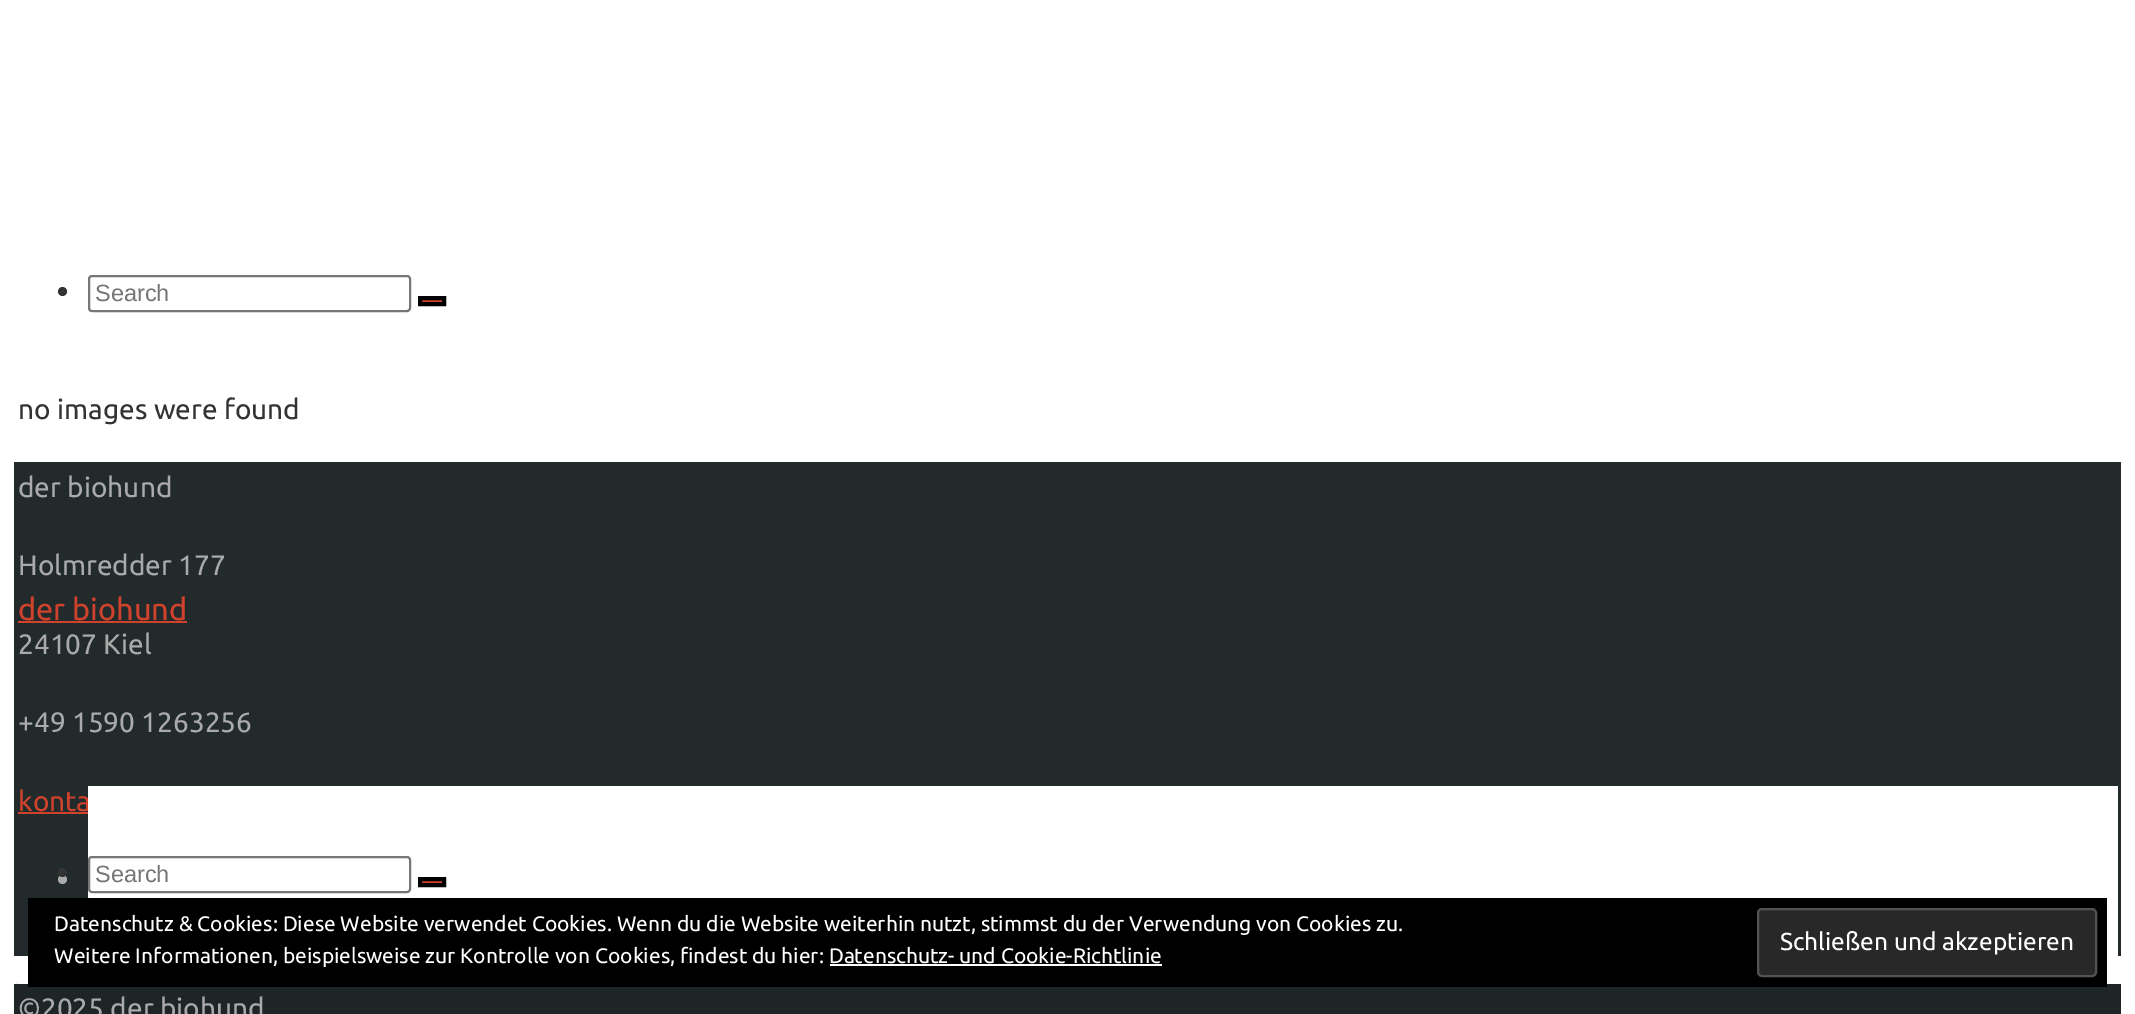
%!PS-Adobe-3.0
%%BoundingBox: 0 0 2135 1014
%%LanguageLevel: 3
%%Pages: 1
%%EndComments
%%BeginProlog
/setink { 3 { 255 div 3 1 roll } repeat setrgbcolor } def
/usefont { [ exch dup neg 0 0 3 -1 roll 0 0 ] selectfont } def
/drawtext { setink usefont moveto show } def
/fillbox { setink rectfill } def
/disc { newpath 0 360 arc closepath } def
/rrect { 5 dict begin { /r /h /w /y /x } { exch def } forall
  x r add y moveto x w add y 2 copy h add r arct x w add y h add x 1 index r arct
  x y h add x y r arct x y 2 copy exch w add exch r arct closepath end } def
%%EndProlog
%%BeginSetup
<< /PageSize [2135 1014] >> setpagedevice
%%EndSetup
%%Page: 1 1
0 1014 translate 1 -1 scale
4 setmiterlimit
0 0 2135 1014 255 255 255 fillbox
51 51 51 setink
62.5 291.5 4.5 disc fill
118 118 118 setink
2 setlinewidth
89 276 321 35 3 rrect stroke
(Search) 95 301 /LiberationSans-Regular 23.5 117 117 117 drawtext
208 66 44 setink
420 298 moveto 444 298 lineto 444 304 lineto 420 304 lineto closepath gsave fill grestore
0 0 0 setink
4 setlinewidth
stroke
14 462 2107 494 34 42 44 fillbox
(der biohund) 18 620 /Ubuntu-Regular 30.75 208 66 44 drawtext
18 621 169 2 208 66 44 fillbox
170 170 170 setink
62.5 879.5 4.5 disc fill
51 51 51 setink
62.5 872.5 4.5 disc fill
(konta) 18 811 /Ubuntu-Regular 28 208 66 44 drawtext
88 786 2030 170 255 255 255 fillbox
118 118 118 setink
2 setlinewidth
89 857 321 35 3 rrect stroke
(Search) 95 882 /LiberationSans-Regular 23.5 117 117 117 drawtext
208 66 44 setink
420 879 moveto 444 879 lineto 444 885 lineto 420 885 lineto closepath gsave fill grestore
0 0 0 setink
4 setlinewidth
stroke
(no images were found) 18 419 /Ubuntu-Regular 28 51 51 51 drawtext
(der biohund) 18 497 /Ubuntu-Regular 28 170 170 170 drawtext
(Holmredder 177) 18 575 /Ubuntu-Regular 28 170 170 170 drawtext
(24107 Kiel) 18 654 /Ubuntu-Regular 28 170 170 170 drawtext
(+49 1590 1263256) 18 732 /Ubuntu-Regular 28 170 170 170 drawtext
18 812 70 2 208 66 44 fillbox
14 984 2107 30 29 37 39 fillbox
16 982 2 2 243 243 243 fillbox
(©2025 der biohund) 18 1018 /Ubuntu-Regular 28 170 170 170 drawtext
28 898 2079 89 0 0 0 fillbox
(Datenschutz & Cookies: Diese Website verwendet Cookies. Wenn du die Website weiterhin nutzt, stimmst du der Verwendung von Cookies zu.) 54 931 /Ubuntu-Regular 21 255 255 255 drawtext
(Weitere Informationen, beispielsweise zur Kontrolle von Cookies, findest du hier: Datenschutz- und Cookie-Richtlinie) 54 963 /Ubuntu-Regular 21 255 255 255 drawtext
40 40 40 setink
1758 909 338 67 4 rrect gsave fill grestore
83 83 83 setink
2 setlinewidth
stroke
(Schließen und akzeptieren) 1780 950 /Ubuntu-Regular 24.5 255 255 255 drawtext
830 964 332 2 255 255 255 fillbox
showpage
%%EOF
